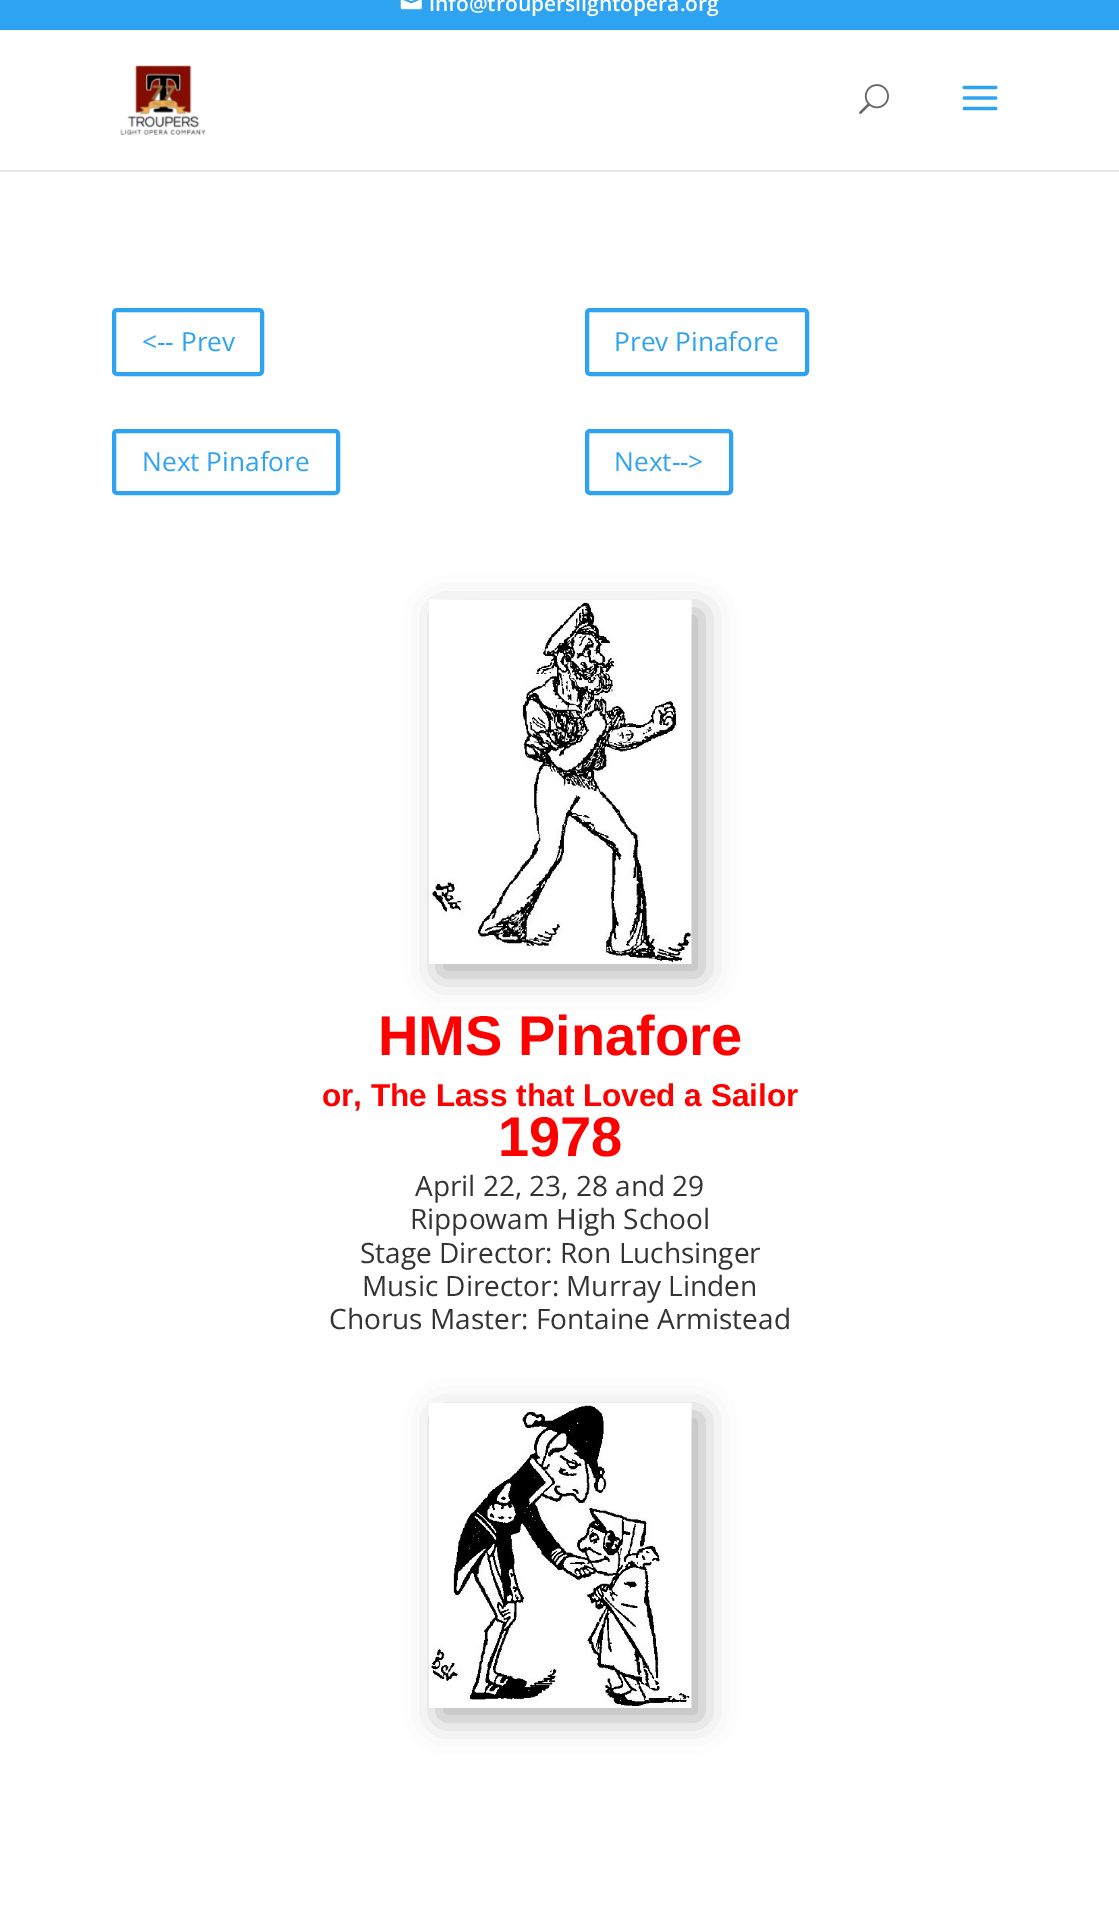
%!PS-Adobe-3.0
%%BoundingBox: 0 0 1119 1911
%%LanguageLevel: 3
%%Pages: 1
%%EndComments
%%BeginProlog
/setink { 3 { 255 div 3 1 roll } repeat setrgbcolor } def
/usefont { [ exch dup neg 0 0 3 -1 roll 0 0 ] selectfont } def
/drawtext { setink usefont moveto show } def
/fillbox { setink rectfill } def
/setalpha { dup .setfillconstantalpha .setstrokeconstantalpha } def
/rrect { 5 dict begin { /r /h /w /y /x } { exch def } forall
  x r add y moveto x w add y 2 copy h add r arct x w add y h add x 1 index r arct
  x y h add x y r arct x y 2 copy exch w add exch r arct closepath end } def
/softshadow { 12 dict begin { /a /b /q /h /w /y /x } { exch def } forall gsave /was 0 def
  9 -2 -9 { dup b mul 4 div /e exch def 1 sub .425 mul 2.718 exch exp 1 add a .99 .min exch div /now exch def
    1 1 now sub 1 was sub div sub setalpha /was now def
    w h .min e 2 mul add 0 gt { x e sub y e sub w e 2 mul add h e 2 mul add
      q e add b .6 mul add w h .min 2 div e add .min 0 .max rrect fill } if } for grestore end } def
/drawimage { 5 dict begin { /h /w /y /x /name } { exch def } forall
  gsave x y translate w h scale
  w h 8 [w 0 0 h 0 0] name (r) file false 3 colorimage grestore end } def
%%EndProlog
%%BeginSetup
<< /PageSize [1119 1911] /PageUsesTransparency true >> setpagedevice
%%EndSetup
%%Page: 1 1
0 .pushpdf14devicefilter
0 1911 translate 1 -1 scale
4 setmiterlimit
0 0 1119 1911 255 255 255 fillbox
0 0 1119 30 46 163 242 fillbox
(assets/img1.rgb) 400 0 22 10 drawimage
(info@trouperslightopera.org) 429 11 /OpenSans-SemiBold 21 255 255 255 drawtext
0 170 1119 2 230 230 230 fillbox
(assets/img2.rgb) 120 65 86 70 drawimage
(assets/img3.rgb) 859 84 30 30 drawimage
(assets/img4.rgb) 962 85 36 26 drawimage
46 163 242 setink
4 setlinewidth
114 310 148 64 3 rrect stroke
(<-- Prev) 142 351 /OpenSans-Regular 26.25 46 163 242 drawtext
587 310 220 64 3 rrect stroke
(Prev Pinafore) 614 351 /OpenSans-Regular 26.25 46 163 242 drawtext
114 431 224 62 3 rrect stroke
(Next Pinafore) 142 471 /OpenSans-Regular 26.25 46 163 242 drawtext
587 431 144 62 3 rrect stroke
(Next-->) 614 471 /OpenSans-Regular 26.25 46 163 242 drawtext
0 0 0 setink
439 611 263 364 0 16 0.3 softshadow
(assets/img5.rgb) 429 599 263 365 drawimage
(HMS Pinafore) 378 1055 /Arimo-Bold 56 255 0 0 drawtext
(or, The Lass that Loved a Sailor) 322 1106 /Arimo-Bold 31.5 255 0 0 drawtext
(1978) 498 1156 /Arimo-Bold 56 255 0 0 drawtext
(April 22, 23, 28 and 29) 415 1196 /OpenSans-Regular 28 51 51 51 drawtext
(Rippowam High School) 410 1229 /OpenSans-Regular 28 51 51 51 drawtext
(Stage Director: Ron Luchsinger) 360 1263 /OpenSans-Regular 28 51 51 51 drawtext
(Music Director: Murray Linden) 362 1296 /OpenSans-Regular 28 51 51 51 drawtext
(Chorus Master: Fontaine Armistead) 329 1329 /OpenSans-Regular 28 51 51 51 drawtext
0 0 0 setink
439 1414 263 305 0 16 0.3 softshadow
(assets/img6.rgb) 429 1403 263 305 drawimage
.poppdf14devicefilter showpage
%%EOF
